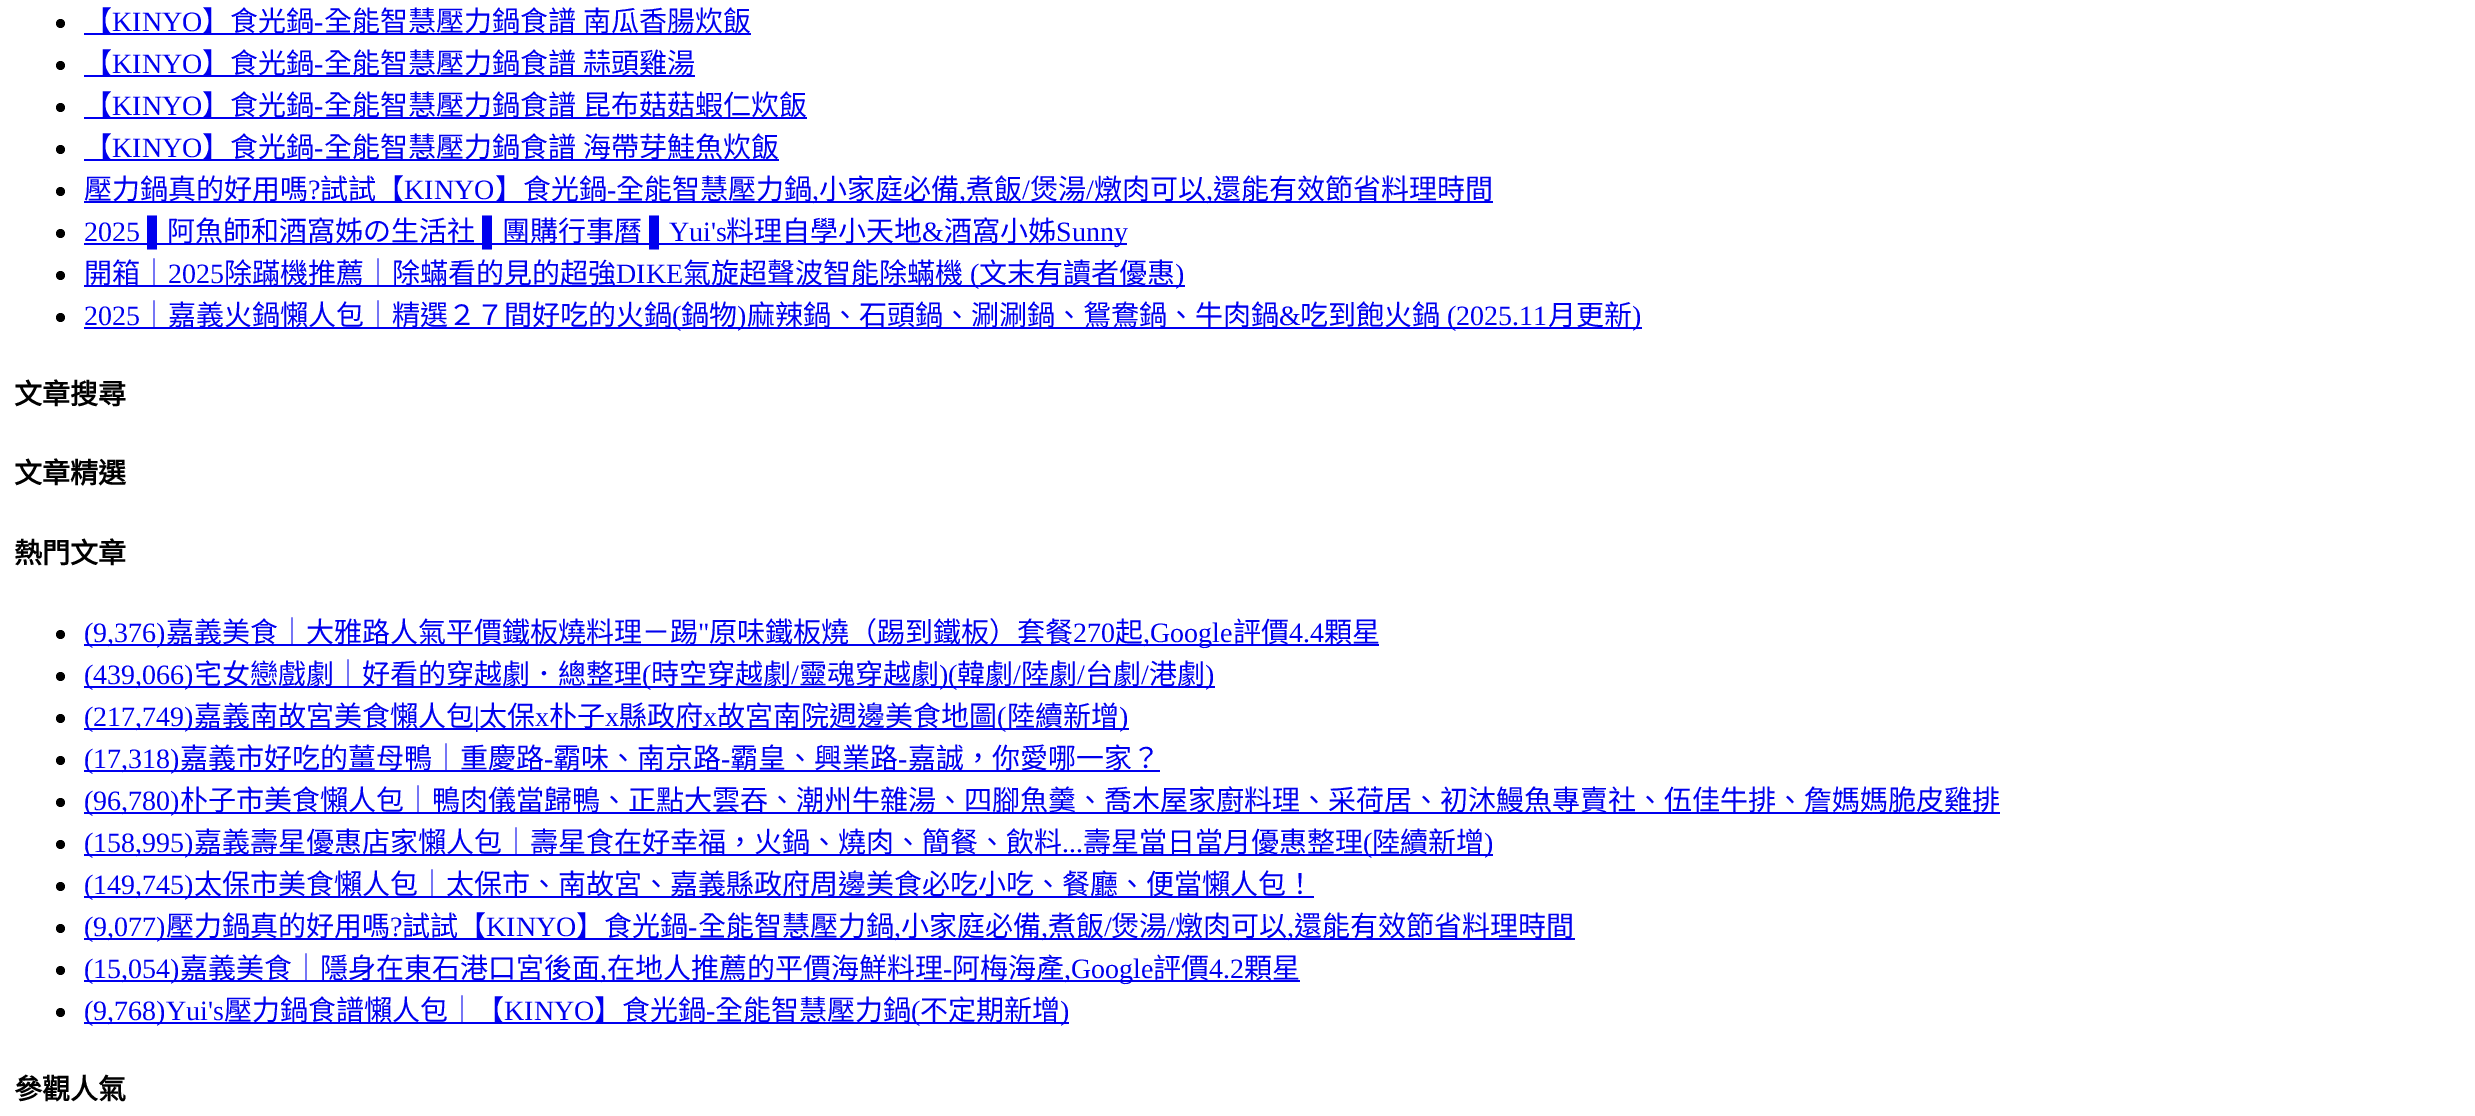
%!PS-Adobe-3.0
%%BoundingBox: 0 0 2475 1116
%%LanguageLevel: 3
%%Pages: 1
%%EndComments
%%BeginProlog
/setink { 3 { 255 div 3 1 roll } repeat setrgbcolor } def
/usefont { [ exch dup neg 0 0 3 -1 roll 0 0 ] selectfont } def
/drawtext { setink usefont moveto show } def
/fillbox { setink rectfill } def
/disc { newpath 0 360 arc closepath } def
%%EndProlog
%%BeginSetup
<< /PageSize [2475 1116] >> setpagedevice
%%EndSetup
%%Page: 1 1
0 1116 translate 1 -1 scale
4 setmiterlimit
0 0 2475 1116 255 255 255 fillbox
0 0 0 setink
60.5 23.5 4.5 disc fill
84 33 667 2 0 0 238 fillbox
(【) 84 31 /NotoSansCJKTC-Regular 28 0 0 238 drawtext
(KINYO) 112 31 /LiberationSerif-Regular 28 0 0 238 drawtext
(】食光鍋) 202 31 /NotoSansCJKTC-Regular 28 0 0 238 drawtext
(-) 314 31 /LiberationSerif-Regular 28 0 0 238 drawtext
/NotoSansCJKTC-Regular 28 usefont
324 31 moveto 1 0 32 (全能智慧壓力鍋食譜 南瓜香腸炊飯) widthshow
0 0 0 setink
60.5 65.5 4.5 disc fill
84 75 611 2 0 0 238 fillbox
(【) 84 73 /NotoSansCJKTC-Regular 28 0 0 238 drawtext
(KINYO) 112 73 /LiberationSerif-Regular 28 0 0 238 drawtext
(】食光鍋) 202 73 /NotoSansCJKTC-Regular 28 0 0 238 drawtext
(-) 314 73 /LiberationSerif-Regular 28 0 0 238 drawtext
/NotoSansCJKTC-Regular 28 usefont
324 73 moveto 1 0 32 (全能智慧壓力鍋食譜 蒜頭雞湯) widthshow
0 0 0 setink
60.5 107.5 4.5 disc fill
84 117 723 2 0 0 238 fillbox
(【) 84 115 /NotoSansCJKTC-Regular 28 0 0 238 drawtext
(KINYO) 112 115 /LiberationSerif-Regular 28 0 0 238 drawtext
(】食光鍋) 202 115 /NotoSansCJKTC-Regular 28 0 0 238 drawtext
(-) 314 115 /LiberationSerif-Regular 28 0 0 238 drawtext
/NotoSansCJKTC-Regular 28 usefont
324 115 moveto 1 0 32 (全能智慧壓力鍋食譜 昆布菇菇蝦仁炊飯) widthshow
0 0 0 setink
60.5 149.5 4.5 disc fill
84 159 695 2 0 0 238 fillbox
(【) 84 157 /NotoSansCJKTC-Regular 28 0 0 238 drawtext
(KINYO) 112 157 /LiberationSerif-Regular 28 0 0 238 drawtext
(】食光鍋) 202 157 /NotoSansCJKTC-Regular 28 0 0 238 drawtext
(-) 314 157 /LiberationSerif-Regular 28 0 0 238 drawtext
/NotoSansCJKTC-Regular 28 usefont
324 157 moveto 1 0 32 (全能智慧壓力鍋食譜 海帶芽鮭魚炊飯) widthshow
0 0 0 setink
60.5 191.5 4.5 disc fill
84 201 1409 2 0 0 238 fillbox
(壓力鍋真的好用嗎) 84 199 /NotoSansCJKTC-Regular 28 0 0 238 drawtext
(?) 308 199 /LiberationSerif-Regular 28 0 0 238 drawtext
(試試【) 320 199 /NotoSansCJKTC-Regular 28 0 0 238 drawtext
(KINYO) 404 199 /LiberationSerif-Regular 28 0 0 238 drawtext
(】食光鍋) 495 199 /NotoSansCJKTC-Regular 28 0 0 238 drawtext
(-) 607 199 /LiberationSerif-Regular 28 0 0 238 drawtext
(全能智慧壓力鍋) 616 199 /NotoSansCJKTC-Regular 28 0 0 238 drawtext
(小家庭必備) 819 199 /NotoSansCJKTC-Regular 28 0 0 238 drawtext
(煮飯) 966 199 /NotoSansCJKTC-Regular 28 0 0 238 drawtext
(/) 1022 199 /LiberationSerif-Regular 28 0 0 238 drawtext
(煲湯) 1030 199 /NotoSansCJKTC-Regular 28 0 0 238 drawtext
(/) 1086 199 /LiberationSerif-Regular 28 0 0 238 drawtext
(燉肉可以) 1094 199 /NotoSansCJKTC-Regular 28 0 0 238 drawtext
(還能有效節省料理時間) 1213 199 /NotoSansCJKTC-Regular 28 0 0 238 drawtext
(,) 812 199 /LiberationSerif-Regular 28 0 0 238 drawtext
(,) 959 199 /LiberationSerif-Regular 28 0 0 238 drawtext
(,) 1206 199 /LiberationSerif-Regular 28 0 0 238 drawtext
0 0 0 setink
60.5 233.5 4.5 disc fill
84 243 1043 2 0 0 238 fillbox
(2025 ▌) 84 241 /LiberationSerif-Regular 28 0 0 238 drawtext
(阿魚師和酒窩姊の生活社) 167 241 /NotoSansCJKTC-Regular 28 0 0 238 drawtext
(▌) 482 241 /LiberationSerif-Regular 28 0 0 238 drawtext
(團購行事曆) 502 241 /NotoSansCJKTC-Regular 28 0 0 238 drawtext
(▌Yui's) 649 241 /LiberationSerif-Regular 28 0 0 238 drawtext
(料理自學小天地) 726 241 /NotoSansCJKTC-Regular 28 0 0 238 drawtext
(&) 922 241 /LiberationSerif-Regular 28 0 0 238 drawtext
(酒窩小姊) 944 241 /NotoSansCJKTC-Regular 28 0 0 238 drawtext
(Sunny) 1056 241 /LiberationSerif-Regular 28 0 0 238 drawtext
0 0 0 setink
60.5 275.5 4.5 disc fill
84 285 1101 2 0 0 238 fillbox
(開箱｜) 84 283 /NotoSansCJKTC-Regular 28 0 0 238 drawtext
(2025) 168 283 /LiberationSerif-Regular 28 0 0 238 drawtext
(除蹣機推薦｜除蟎看的見的超強) 224 283 /NotoSansCJKTC-Regular 28 0 0 238 drawtext
(DIKE) 616 283 /LiberationSerif-Regular 28 0 0 238 drawtext
(氣旋超聲波智能除蟎機) 683 283 /NotoSansCJKTC-Regular 28 0 0 238 drawtext
(\() 970 283 /LiberationSerif-Regular 28 0 0 238 drawtext
(文末有讀者優惠) 979 283 /NotoSansCJKTC-Regular 28 0 0 238 drawtext
(\)) 1175 283 /LiberationSerif-Regular 28 0 0 238 drawtext
0 0 0 setink
60.5 317.5 4.5 disc fill
(2025) 84 325 /LiberationSerif-Regular 28 0 0 238 drawtext
84 327 1558 2 0 0 238 fillbox
(｜嘉義火鍋懶人包｜精選２７間好吃的火鍋) 140 325 /NotoSansCJKTC-Regular 28 0 0 238 drawtext
(\() 672 325 /LiberationSerif-Regular 28 0 0 238 drawtext
(鍋物) 681 325 /NotoSansCJKTC-Regular 28 0 0 238 drawtext
(\)) 737 325 /LiberationSerif-Regular 28 0 0 238 drawtext
(麻辣鍋、石頭鍋、涮涮鍋、鴛鴦鍋、牛肉鍋) 747 325 /NotoSansCJKTC-Regular 28 0 0 238 drawtext
(&) 1279 325 /LiberationSerif-Regular 28 0 0 238 drawtext
(吃到飽火鍋) 1300 325 /NotoSansCJKTC-Regular 28 0 0 238 drawtext
(\(2025.11) 1447 325 /LiberationSerif-Regular 28 0 0 238 drawtext
(月更新) 1548 325 /NotoSansCJKTC-Regular 28 0 0 238 drawtext
(\)) 1632 325 /LiberationSerif-Regular 28 0 0 238 drawtext
(文章搜尋) 14 404 /NotoSansCJKTC-Bold 28 0 0 0 drawtext
(文章精選) 14 483 /NotoSansCJKTC-Bold 28 0 0 0 drawtext
(熱門文章) 14 563 /NotoSansCJKTC-Bold 28 0 0 0 drawtext
60.5 634.5 4.5 disc fill
84 644 1295 2 0 0 238 fillbox
(\(9,376\)) 84 642 /LiberationSerif-Regular 28 0 0 238 drawtext
(嘉義美食｜大雅路人氣平價鐵板燒料理－踢) 166 642 /NotoSansCJKTC-Regular 28 0 0 238 drawtext
(") 698 642 /LiberationSerif-Regular 28 0 0 238 drawtext
(原味鐵板燒（踢到鐵板）套餐) 709 642 /NotoSansCJKTC-Regular 28 0 0 238 drawtext
(270) 1073 642 /LiberationSerif-Regular 28 0 0 238 drawtext
(起) 1115 642 /NotoSansCJKTC-Regular 28 0 0 238 drawtext
(,Google) 1143 642 /LiberationSerif-Regular 28 0 0 238 drawtext
(評價) 1233 642 /NotoSansCJKTC-Regular 28 0 0 238 drawtext
(4.4) 1289 642 /LiberationSerif-Regular 28 0 0 238 drawtext
(顆星) 1324 642 /NotoSansCJKTC-Regular 28 0 0 238 drawtext
0 0 0 setink
60.5 676.5 4.5 disc fill
84 686 1131 2 0 0 238 fillbox
(\(439,066\)) 84 684 /LiberationSerif-Regular 28 0 0 238 drawtext
(宅女戀戲劇｜好看的穿越劇．總整理) 194 684 /NotoSansCJKTC-Regular 28 0 0 238 drawtext
(\() 642 684 /LiberationSerif-Regular 28 0 0 238 drawtext
(時空穿越劇) 651 684 /NotoSansCJKTC-Regular 28 0 0 238 drawtext
(/) 791 684 /LiberationSerif-Regular 28 0 0 238 drawtext
(靈魂穿越劇) 799 684 /NotoSansCJKTC-Regular 28 0 0 238 drawtext
(\)\() 939 684 /LiberationSerif-Regular 28 0 0 238 drawtext
(韓劇) 957 684 /NotoSansCJKTC-Regular 28 0 0 238 drawtext
(/) 1013 684 /LiberationSerif-Regular 28 0 0 238 drawtext
(陸劇) 1021 684 /NotoSansCJKTC-Regular 28 0 0 238 drawtext
(/) 1077 684 /LiberationSerif-Regular 28 0 0 238 drawtext
(台劇) 1085 684 /NotoSansCJKTC-Regular 28 0 0 238 drawtext
(/) 1141 684 /LiberationSerif-Regular 28 0 0 238 drawtext
(港劇) 1149 684 /NotoSansCJKTC-Regular 28 0 0 238 drawtext
(\)) 1205 684 /LiberationSerif-Regular 28 0 0 238 drawtext
0 0 0 setink
60.5 718.5 4.5 disc fill
84 728 1045 2 0 0 238 fillbox
(\(217,749\)) 84 726 /LiberationSerif-Regular 28 0 0 238 drawtext
(嘉義南故宮美食懶人包) 194 726 /NotoSansCJKTC-Regular 28 0 0 238 drawtext
(|) 474 726 /LiberationSerif-Regular 28 0 0 238 drawtext
(太保) 479 726 /NotoSansCJKTC-Regular 28 0 0 238 drawtext
(x) 535 726 /LiberationSerif-Regular 28 0 0 238 drawtext
(朴子) 549 726 /NotoSansCJKTC-Regular 28 0 0 238 drawtext
(x) 605 726 /LiberationSerif-Regular 28 0 0 238 drawtext
(縣政府) 619 726 /NotoSansCJKTC-Regular 28 0 0 238 drawtext
(x) 703 726 /LiberationSerif-Regular 28 0 0 238 drawtext
(故宮南院週邊美食地圖) 717 726 /NotoSansCJKTC-Regular 28 0 0 238 drawtext
(\() 997 726 /LiberationSerif-Regular 28 0 0 238 drawtext
(陸續新增) 1007 726 /NotoSansCJKTC-Regular 28 0 0 238 drawtext
(\)) 1119 726 /LiberationSerif-Regular 28 0 0 238 drawtext
0 0 0 setink
60.5 760.5 4.5 disc fill
84 770 1076 2 0 0 238 fillbox
(\(17,318\)) 84 768 /LiberationSerif-Regular 28 0 0 238 drawtext
(嘉義市好吃的薑母鴨｜重慶路) 180 768 /NotoSansCJKTC-Regular 28 0 0 238 drawtext
(-) 544 768 /LiberationSerif-Regular 28 0 0 238 drawtext
(霸味、南京路) 553 768 /NotoSansCJKTC-Regular 28 0 0 238 drawtext
(-) 721 768 /LiberationSerif-Regular 28 0 0 238 drawtext
(霸皇、興業路) 730 768 /NotoSansCJKTC-Regular 28 0 0 238 drawtext
(-) 898 768 /LiberationSerif-Regular 28 0 0 238 drawtext
(嘉誠，你愛哪一家？) 908 768 /NotoSansCJKTC-Regular 28 0 0 238 drawtext
0 0 0 setink
60.5 802.5 4.5 disc fill
84 812 1916 2 0 0 238 fillbox
(\(96,780\)) 84 810 /LiberationSerif-Regular 28 0 0 238 drawtext
(朴子市美食懶人包｜鴨肉儀當歸鴨、正點大雲吞、潮州牛雜湯、四腳魚羹、喬木屋家廚料理、采荷居、初沐鰻魚專賣社、伍佳牛排、詹媽媽脆皮雞排) 180 810 /NotoSansCJKTC-Regular 28 0 0 238 drawtext
0 0 0 setink
60.5 844.5 4.5 disc fill
84 854 1409 2 0 0 238 fillbox
(\(158,995\)) 84 852 /LiberationSerif-Regular 28 0 0 238 drawtext
(嘉義壽星優惠店家懶人包｜壽星食在好幸福，火鍋、燒肉、簡餐、飲料) 194 852 /NotoSansCJKTC-Regular 28 0 0 238 drawtext
(壽星當日當月優惠整理) 1083 852 /NotoSansCJKTC-Regular 28 0 0 238 drawtext
(\() 1363 852 /LiberationSerif-Regular 28 0 0 238 drawtext
(陸續新增) 1372 852 /NotoSansCJKTC-Regular 28 0 0 238 drawtext
(\)) 1484 852 /LiberationSerif-Regular 28 0 0 238 drawtext
(...) 1062 852 /LiberationSerif-Regular 28 0 0 238 drawtext
0 0 0 setink
60.5 886.5 4.5 disc fill
84 896 1230 2 0 0 238 fillbox
(\(149,745\)) 84 894 /LiberationSerif-Regular 28 0 0 238 drawtext
(太保市美食懶人包｜太保市、南故宮、嘉義縣政府周邊美食必吃小吃、餐廳、便當懶人包！) 194 894 /NotoSansCJKTC-Regular 28 0 0 238 drawtext
0 0 0 setink
60.5 928.5 4.5 disc fill
84 938 1491 2 0 0 238 fillbox
(\(9,077\)) 84 936 /LiberationSerif-Regular 28 0 0 238 drawtext
(壓力鍋真的好用嗎) 166 936 /NotoSansCJKTC-Regular 28 0 0 238 drawtext
(?) 390 936 /LiberationSerif-Regular 28 0 0 238 drawtext
(試試【) 402 936 /NotoSansCJKTC-Regular 28 0 0 238 drawtext
(KINYO) 486 936 /LiberationSerif-Regular 28 0 0 238 drawtext
(】食光鍋) 576 936 /NotoSansCJKTC-Regular 28 0 0 238 drawtext
(-) 688 936 /LiberationSerif-Regular 28 0 0 238 drawtext
(全能智慧壓力鍋) 698 936 /NotoSansCJKTC-Regular 28 0 0 238 drawtext
(小家庭必備) 901 936 /NotoSansCJKTC-Regular 28 0 0 238 drawtext
(煮飯) 1048 936 /NotoSansCJKTC-Regular 28 0 0 238 drawtext
(/) 1104 936 /LiberationSerif-Regular 28 0 0 238 drawtext
(煲湯) 1111 936 /NotoSansCJKTC-Regular 28 0 0 238 drawtext
(/) 1167 936 /LiberationSerif-Regular 28 0 0 238 drawtext
(燉肉可以) 1175 936 /NotoSansCJKTC-Regular 28 0 0 238 drawtext
(還能有效節省料理時間) 1294 936 /NotoSansCJKTC-Regular 28 0 0 238 drawtext
(,) 894 936 /LiberationSerif-Regular 28 0 0 238 drawtext
(,) 1041 936 /LiberationSerif-Regular 28 0 0 238 drawtext
(,) 1287 936 /LiberationSerif-Regular 28 0 0 238 drawtext
0 0 0 setink
60.5 970.5 4.5 disc fill
84 980 1216 2 0 0 238 fillbox
(\(15,054\)) 84 978 /LiberationSerif-Regular 28 0 0 238 drawtext
(嘉義美食｜隱身在東石港口宮後面) 180 978 /NotoSansCJKTC-Regular 28 0 0 238 drawtext
(在地人推薦的平價海鮮料理) 607 978 /NotoSansCJKTC-Regular 28 0 0 238 drawtext
(-) 943 978 /LiberationSerif-Regular 28 0 0 238 drawtext
(阿梅海產) 952 978 /NotoSansCJKTC-Regular 28 0 0 238 drawtext
(,Google) 1064 978 /LiberationSerif-Regular 28 0 0 238 drawtext
(評價) 1153 978 /NotoSansCJKTC-Regular 28 0 0 238 drawtext
(4.2) 1209 978 /LiberationSerif-Regular 28 0 0 238 drawtext
(顆星) 1244 978 /NotoSansCJKTC-Regular 28 0 0 238 drawtext
(,) 600 978 /LiberationSerif-Regular 28 0 0 238 drawtext
0 0 0 setink
60.5 1012.5 4.5 disc fill
84 1022 985 2 0 0 238 fillbox
(\(9,768\)Yui's) 84 1020 /LiberationSerif-Regular 28 0 0 238 drawtext
(壓力鍋食譜懶人包｜【) 224 1020 /NotoSansCJKTC-Regular 28 0 0 238 drawtext
(KINYO) 504 1020 /LiberationSerif-Regular 28 0 0 238 drawtext
(】食光鍋) 594 1020 /NotoSansCJKTC-Regular 28 0 0 238 drawtext
(-) 706 1020 /LiberationSerif-Regular 28 0 0 238 drawtext
(全能智慧壓力鍋) 715 1020 /NotoSansCJKTC-Regular 28 0 0 238 drawtext
(\() 911 1020 /LiberationSerif-Regular 28 0 0 238 drawtext
(不定期新增) 920 1020 /NotoSansCJKTC-Regular 28 0 0 238 drawtext
(\)) 1060 1020 /LiberationSerif-Regular 28 0 0 238 drawtext
(參觀人氣) 14 1099 /NotoSansCJKTC-Bold 28 0 0 0 drawtext
showpage
%%EOF
